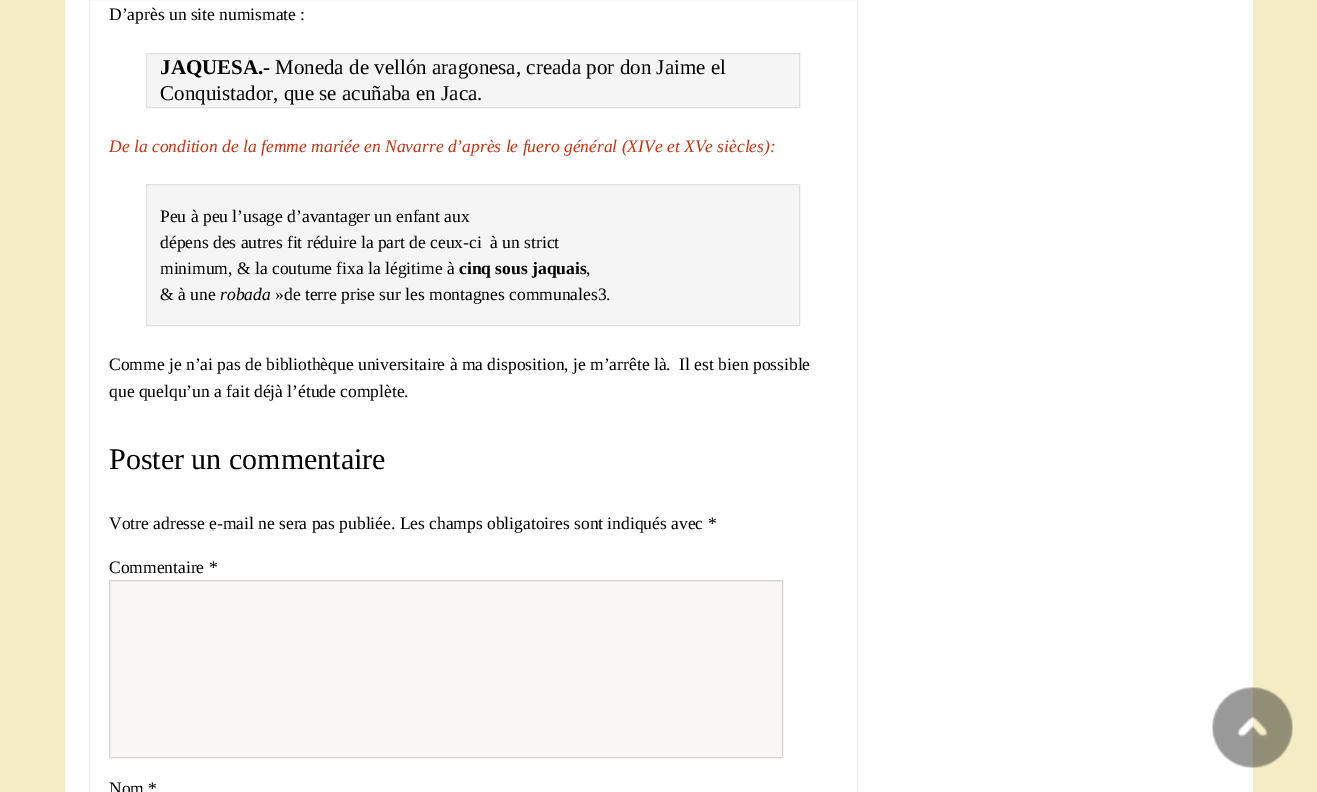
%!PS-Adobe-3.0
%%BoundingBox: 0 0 1317 792
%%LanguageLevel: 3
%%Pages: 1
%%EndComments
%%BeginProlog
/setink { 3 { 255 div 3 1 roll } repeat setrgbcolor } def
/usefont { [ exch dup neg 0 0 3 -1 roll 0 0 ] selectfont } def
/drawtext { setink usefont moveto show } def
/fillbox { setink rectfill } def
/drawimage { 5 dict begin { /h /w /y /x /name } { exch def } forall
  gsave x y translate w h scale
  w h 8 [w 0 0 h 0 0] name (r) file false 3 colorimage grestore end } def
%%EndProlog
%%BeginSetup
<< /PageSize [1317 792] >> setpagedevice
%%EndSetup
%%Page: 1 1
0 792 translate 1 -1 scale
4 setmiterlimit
0 0 1317 792 243 236 196 fillbox
65 0 1188 792 255 255 255 fillbox
235 235 235 setink
89.5 -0.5 768 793 rectstroke
(D’après un site numismate :) 109 20 /LiberationSerif-Regular 17.5 0 0 0 drawtext
245 245 245 setink
146.5 53.5 moveto 799.5 53.5 lineto 799.5 107.5 lineto 146.5 107.5 lineto closepath gsave fill grestore
224 224 224 setink
stroke
(JAQUESA.-) 160 74 /LiberationSerif-Bold 21 0 0 0 drawtext
(Moneda de vellón aragonesa, creada por don Jaime el) 275 74 /LiberationSerif-Regular 21 0 0 0 drawtext
(Conquistador, que se acuñaba en Jac) 160 100 /LiberationSerif-Regular 21 0 0 0 drawtext
(a.) 468 100 /LiberationSerif-Regular 21 0 0 0 drawtext
(De la condition de la femme mariée en Navarre d’après le fuero général \(XIVe et XVe siècles\):) 109 152 /LiberationSerif-Italic 17.5 194 53 21 drawtext
245 245 245 setink
146.5 184.5 moveto 799.5 184.5 lineto 799.5 325.5 lineto 146.5 325.5 lineto closepath gsave fill grestore
224 224 224 setink
stroke
(Peu à peu l’usage d’avantager un enfant aux) 160 222 /LiberationSerif-Regular 17.5 0 0 0 drawtext
(dépens des autres fit réduire la part de ceux-ci  à un strict) 160 248 /LiberationSerif-Regular 17.5 0 0 0 drawtext
(minimum, & la coutume fixa la légitime à) 160 274 /LiberationSerif-Regular 17.5 0 0 0 drawtext
(cinq sous jaquais) 459 274 /LiberationSerif-Bold 17.5 0 0 0 drawtext
(,) 586 274 /LiberationSerif-Regular 17.5 0 0 0 drawtext
(& à une) 160 300 /LiberationSerif-Regular 17.5 0 0 0 drawtext
(robada) 220 300 /LiberationSerif-Italic 17.5 0 0 0 drawtext
(»de terre prise sur les montagnes communales3.) 275 300 /LiberationSerif-Regular 17.5 0 0 0 drawtext
(Comme je n’ai pas de bibliothèque universitaire à ma disposition, je m’arrête là.  Il est bien possible) 109 370 /LiberationSerif-Regular 17.5 0 0 0 drawtext
(que quelqu’un a fait déjà l’étude complète.) 109 397 /LiberationSerif-Regular 17.5 0 0 0 drawtext
(Poster un commentaire) 109 469 /LiberationSerif-Regular 30 0 0 0 drawtext
(Votre adresse e-mail ne sera pas publiée. Les champs obligatoires sont indiqués avec *) 109 529 /LiberationSerif-Regular 17.5 0 0 0 drawtext
(Commentaire *) 109 573 /LiberationSerif-Regular 17.5 0 0 0 drawtext
248 247 246 setink
109.5 580.5 moveto 782.5 580.5 lineto 782.5 757.5 lineto 109.5 757.5 lineto closepath gsave fill grestore
214 211 211 setink
stroke
(Nom *) 109 794 /LiberationSerif-Regular 17.5 0 0 0 drawtext
(assets/img1.rgb) 1212 687 81 81 drawimage
showpage
%%EOF
